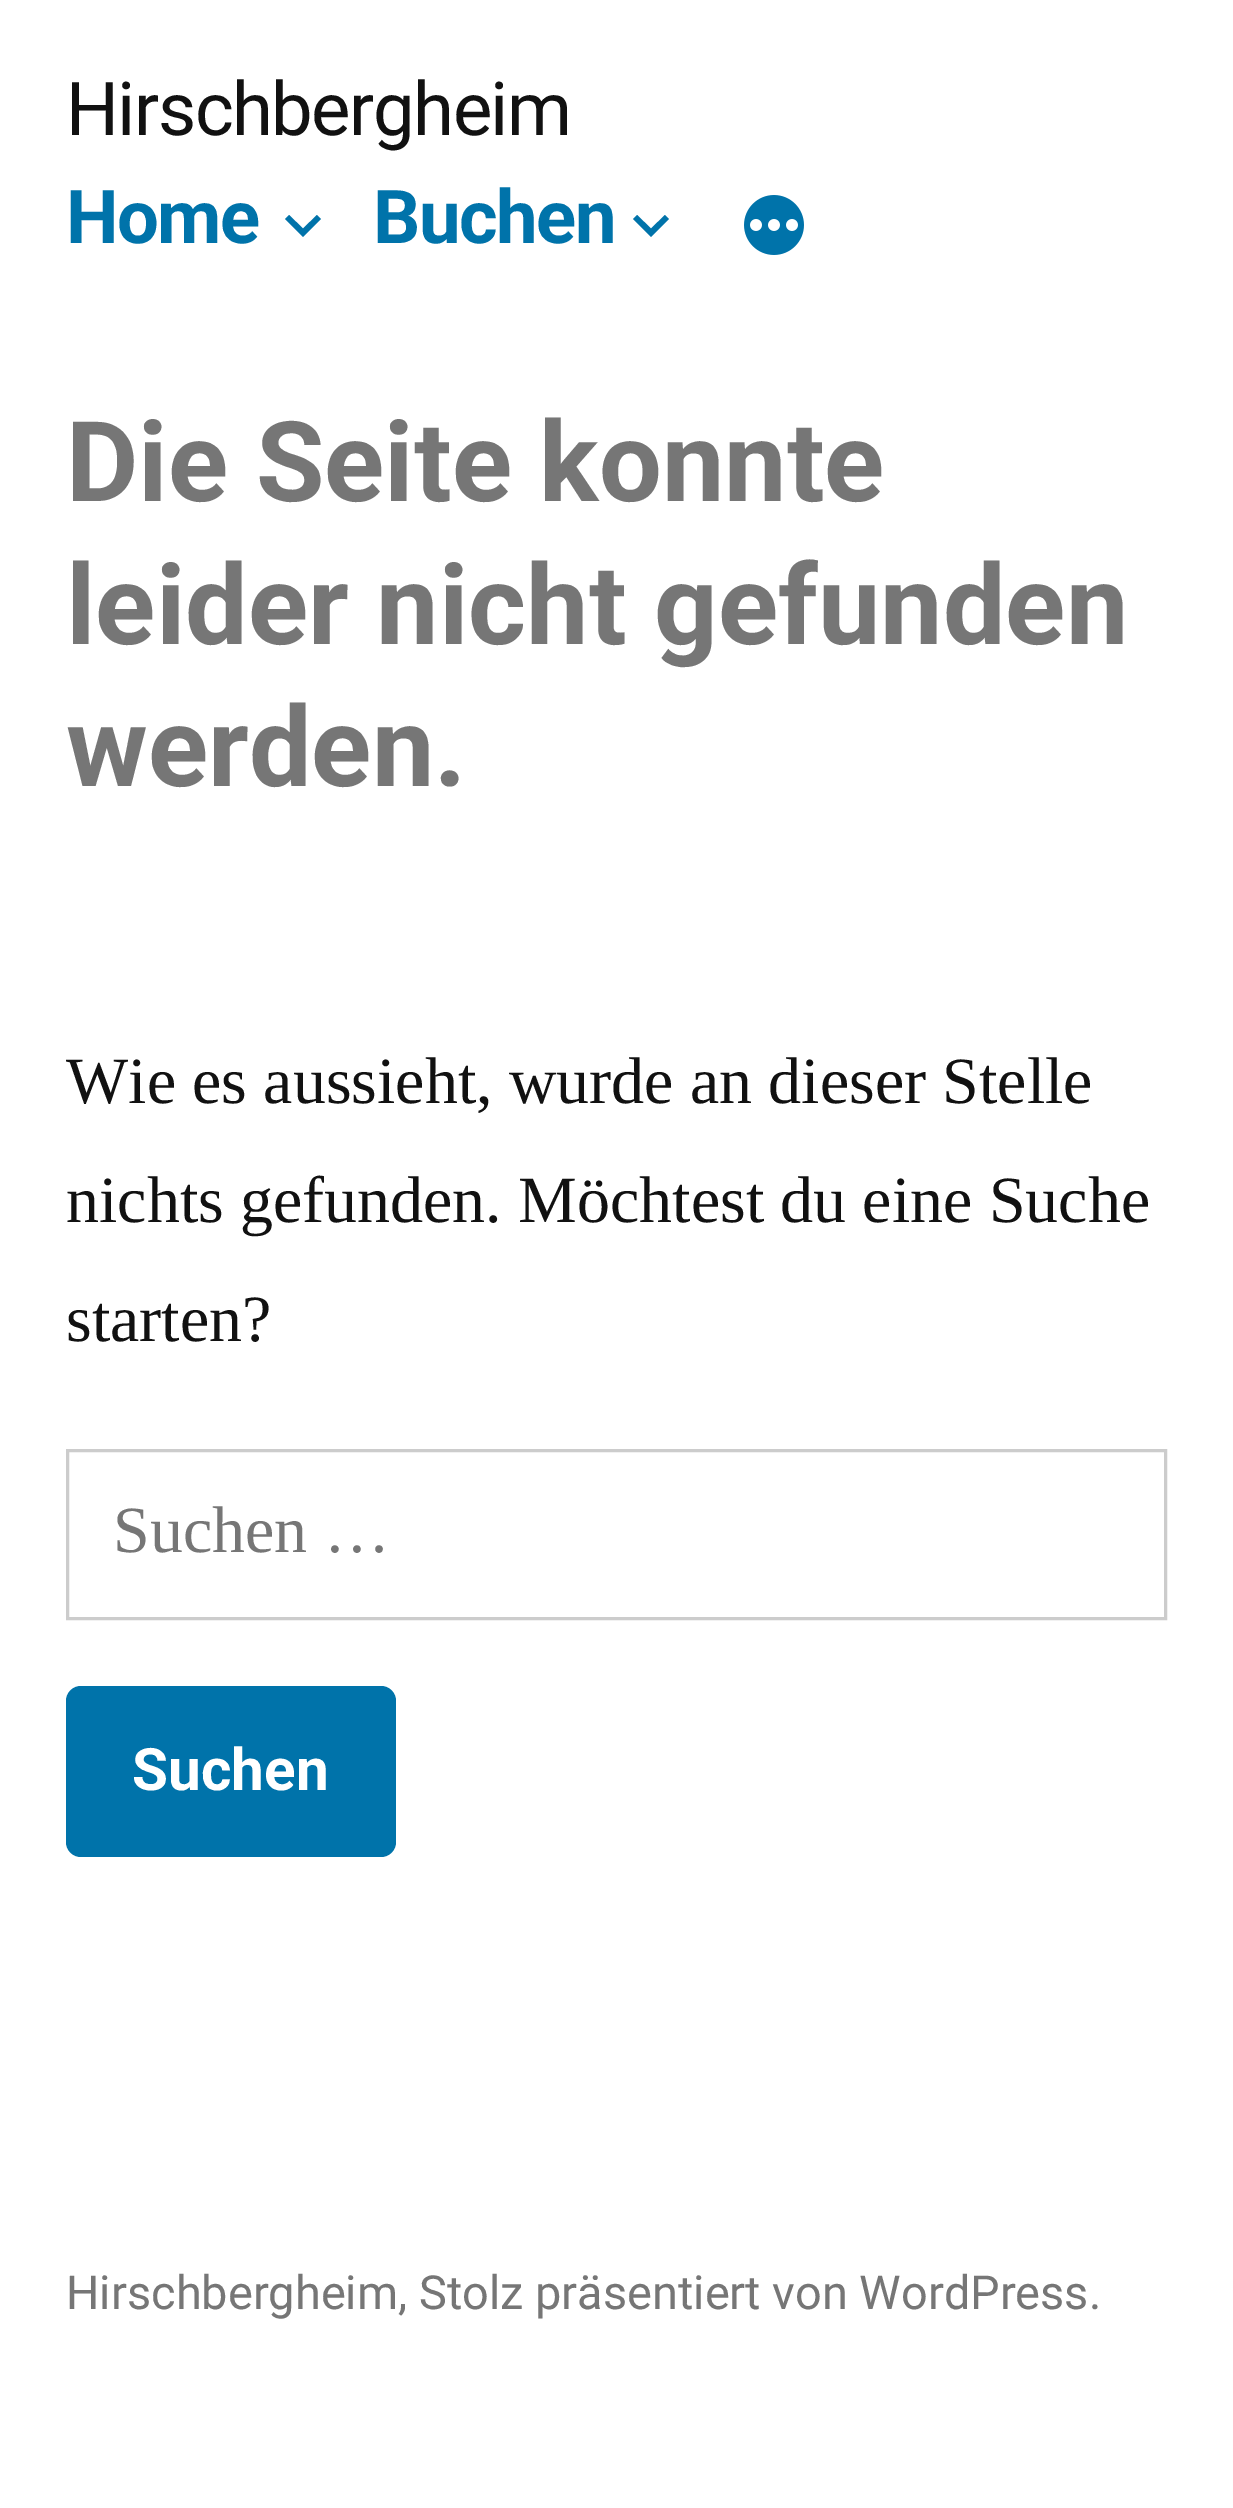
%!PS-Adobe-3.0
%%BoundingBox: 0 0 1233 2508
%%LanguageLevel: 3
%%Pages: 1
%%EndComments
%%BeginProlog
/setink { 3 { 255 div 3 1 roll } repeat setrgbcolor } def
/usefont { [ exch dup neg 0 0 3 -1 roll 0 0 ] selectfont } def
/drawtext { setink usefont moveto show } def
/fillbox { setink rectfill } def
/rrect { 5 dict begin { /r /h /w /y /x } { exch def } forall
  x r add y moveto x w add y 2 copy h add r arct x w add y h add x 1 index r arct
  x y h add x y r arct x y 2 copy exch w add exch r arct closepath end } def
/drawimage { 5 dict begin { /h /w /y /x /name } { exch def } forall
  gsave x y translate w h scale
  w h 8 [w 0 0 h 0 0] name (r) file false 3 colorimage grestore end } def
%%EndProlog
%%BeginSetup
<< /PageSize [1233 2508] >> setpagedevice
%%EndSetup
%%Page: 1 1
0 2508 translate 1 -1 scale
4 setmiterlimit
0 0 1233 2508 255 255 255 fillbox
/Roboto-Regular 74.25 usefont
17 17 17 setink
66 135 moveto -1.5 0 (Hirschbergheim) ashow
/Roboto-Bold 74.25 usefont
0 115 170 setink
66 243 moveto -1.5 0 (Home) ashow
289 215 moveto 303 228.5 lineto 317 215 lineto 321 219 lineto 303 237 lineto 285 219 lineto closepath fill
373 243 moveto -1.5 0 (Buchen) ashow
637 215 moveto 651 228.5 lineto 665 215 lineto 669 219 lineto 651 237 lineto 633 219 lineto closepath fill
(assets/img1.rgb) 744 195 60 60 drawimage
(Die Seite konnte) 66 501 /Roboto-Bold 111.4 118 118 118 drawtext
(leider nicht gefunden) 66 644 /Roboto-Bold 111.4 118 118 118 drawtext
(werden.) 66 786 /Roboto-Bold 111.4 118 118 118 drawtext
/LiberationSerif-Regular 66 usefont
17 17 17 setink
66 1103 moveto -0.25 0 32 (Wie es aussieht, wurde an dieser Stelle) widthshow
66 1222 moveto -0.25 0 32 (nichts gefunden. Möchtest du eine Suche) widthshow
(starten?) 66 1341 /LiberationSerif-Regular 66 17 17 17 drawtext
204 204 204 setink
3 setlinewidth
67.5 1450.5 1098 168 rectstroke
(Suchen …) 113 1552 /LiberationSerif-Regular 66 118 118 118 drawtext
0 115 170 setink
66 1686 330 171 15 rrect fill
(Suchen) 132 1790 /Roboto-Bold 58.5 255 255 255 drawtext
(Hirschbergheim) 66 2309 /Roboto-Regular 46.9 118 118 118 drawtext
(, Stolz präsentiert von WordPress.) 398 2309 /Roboto-Regular 46.9 118 118 118 drawtext
showpage
%%EOF
